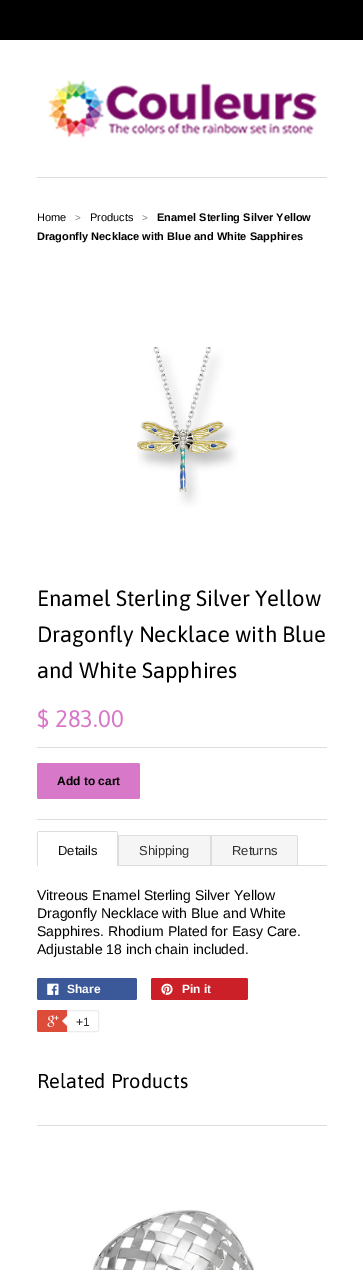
%!PS-Adobe-3.0
%%BoundingBox: 0 0 363 1270
%%LanguageLevel: 3
%%Pages: 1
%%EndComments
%%BeginProlog
/setink { 3 { 255 div 3 1 roll } repeat setrgbcolor } def
/usefont { [ exch dup neg 0 0 3 -1 roll 0 0 ] selectfont } def
/drawtext { setink usefont moveto show } def
/fillbox { setink rectfill } def
/rrect { 5 dict begin { /r /h /w /y /x } { exch def } forall
  x r add y moveto x w add y 2 copy h add r arct x w add y h add x 1 index r arct
  x y h add x y r arct x y 2 copy exch w add exch r arct closepath end } def
/drawimage { 5 dict begin { /h /w /y /x /name } { exch def } forall
  gsave x y translate w h scale
  w h 8 [w 0 0 h 0 0] name (r) file false 3 colorimage grestore end } def
%%EndProlog
%%BeginSetup
<< /PageSize [363 1270] >> setpagedevice
%%EndSetup
%%Page: 1 1
0 1270 translate 1 -1 scale
4 setmiterlimit
0 0 363 1270 255 255 255 fillbox
0 0 363 40 0 0 0 fillbox
37 177 290 1 221 221 221 fillbox
(assets/img1.rgb) 48 79 269 59 drawimage
(Home) 37 221 /LiberationSans-Regular 11 0 0 0 drawtext
(>) 75 221 /LiberationSans-Regular 10 128 128 128 drawtext
(Products) 90 221 /LiberationSans-Regular 11 0 0 0 drawtext
(>) 142 221 /LiberationSans-Regular 10 128 128 128 drawtext
(Enamel Sterling Silver Yellow) 157 221 /LiberationSans-Bold 11 0 0 0 drawtext
(Dragonfly Necklace with Blue and White Sapphires) 37 240 /LiberationSans-Bold 11 0 0 0 drawtext
(assets/img2.rgb) 137 347 101 160 drawimage
(Enamel Sterling Silver Yellow) 37 606 /Asap-Regular 22 0 0 0 drawtext
(Dragonfly Necklace with Blue) 37 642 /Asap-Regular 22 0 0 0 drawtext
(and White Sapphires) 37 678 /Asap-Regular 22 0 0 0 drawtext
($ 283.00) 37 727 /Asap-Regular 24 216 120 201 drawtext
37 747 290 1 221 221 221 fillbox
37 819 290 1 221 221 221 fillbox
216 120 201 setink
37 763 103 36 2 rrect fill
(Add to cart) 57 785 /LiberationSans-Bold 12 0 0 0 drawtext
118 865 209 1 221 221 221 fillbox
38 831 79 1 221 221 221 fillbox
117 832 1 34 221 221 221 fillbox
37 832 1 34 221 221 221 fillbox
(Details) 58 855 /LiberationSans-Regular 13 17 17 17 drawtext
119 836 91 29 245 245 245 fillbox
118 835 93 1 221 221 221 fillbox
210 835 1 30 221 221 221 fillbox
118 835 1 30 221 221 221 fillbox
(Shipping) 139 855 /LiberationSans-Regular 13 48 48 48 drawtext
245 245 245 setink
211 835 moveto 296 835 lineto 297 835 298 836 298 837 curveto 298 865 lineto 211 865 lineto closepath fill
211 835 86 1 221 221 221 fillbox
297 836 1 29 221 221 221 fillbox
211 835 1 30 221 221 221 fillbox
(Returns) 232 855 /LiberationSans-Regular 13 48 48 48 drawtext
(Vitreous Enamel Sterling Silver Yellow) 37 900 /LiberationSans-Regular 14 0 0 0 drawtext
(Dragonfly Necklace with Blue and White) 37 918 /LiberationSans-Regular 14 0 0 0 drawtext
(Sapphires. Rhodium Plated for Easy Care.) 37 936 /LiberationSans-Regular 14 0 0 0 drawtext
(Adjustable 18 inch chain included.) 37 954 /LiberationSans-Regular 14 0 0 0 drawtext
59 89 152 setink
37 978 100 22 2 rrect fill
(assets/img3.rgb) 47 983 12 12 drawimage
(Share) 67 993 /LiberationSans-Bold 12 255 255 255 drawtext
203 32 39 setink
151 978 97 22 2 rrect fill
(assets/img4.rgb) 161 983 12 12 drawimage
(Pin it) 182 993 /LiberationSans-Bold 12 255 255 255 drawtext
221 75 57 setink
37 1010 60 22 2 rrect fill
(assets/img5.rgb) 47 1015 12 12 drawimage
255 255 255 setink
67.5 1010.5 moveto 97 1010.5 lineto 98 1010.5 98.5 1011 98.5 1012 curveto 98.5 1030 lineto 98.5 1031 98 1031.5 97 1031.5 curveto 67.5 1031.5 lineto closepath gsave fill grestore
236 236 236 setink
stroke
68 1015 moveto 68 1027 lineto 62 1021 lineto closepath fill
255 255 255 setink
69 1015 moveto 69 1027 lineto 63 1021 lineto closepath fill
(+1) 76 1026 /LiberationSans-Regular 12 48 48 48 drawtext
37 1125 290 1 221 221 221 fillbox
(Related Products) 37 1088 /Asap-Regular 20 0 0 0 drawtext
(assets/img6.rgb) 92 1209 163 61 drawimage
showpage
%%EOF
